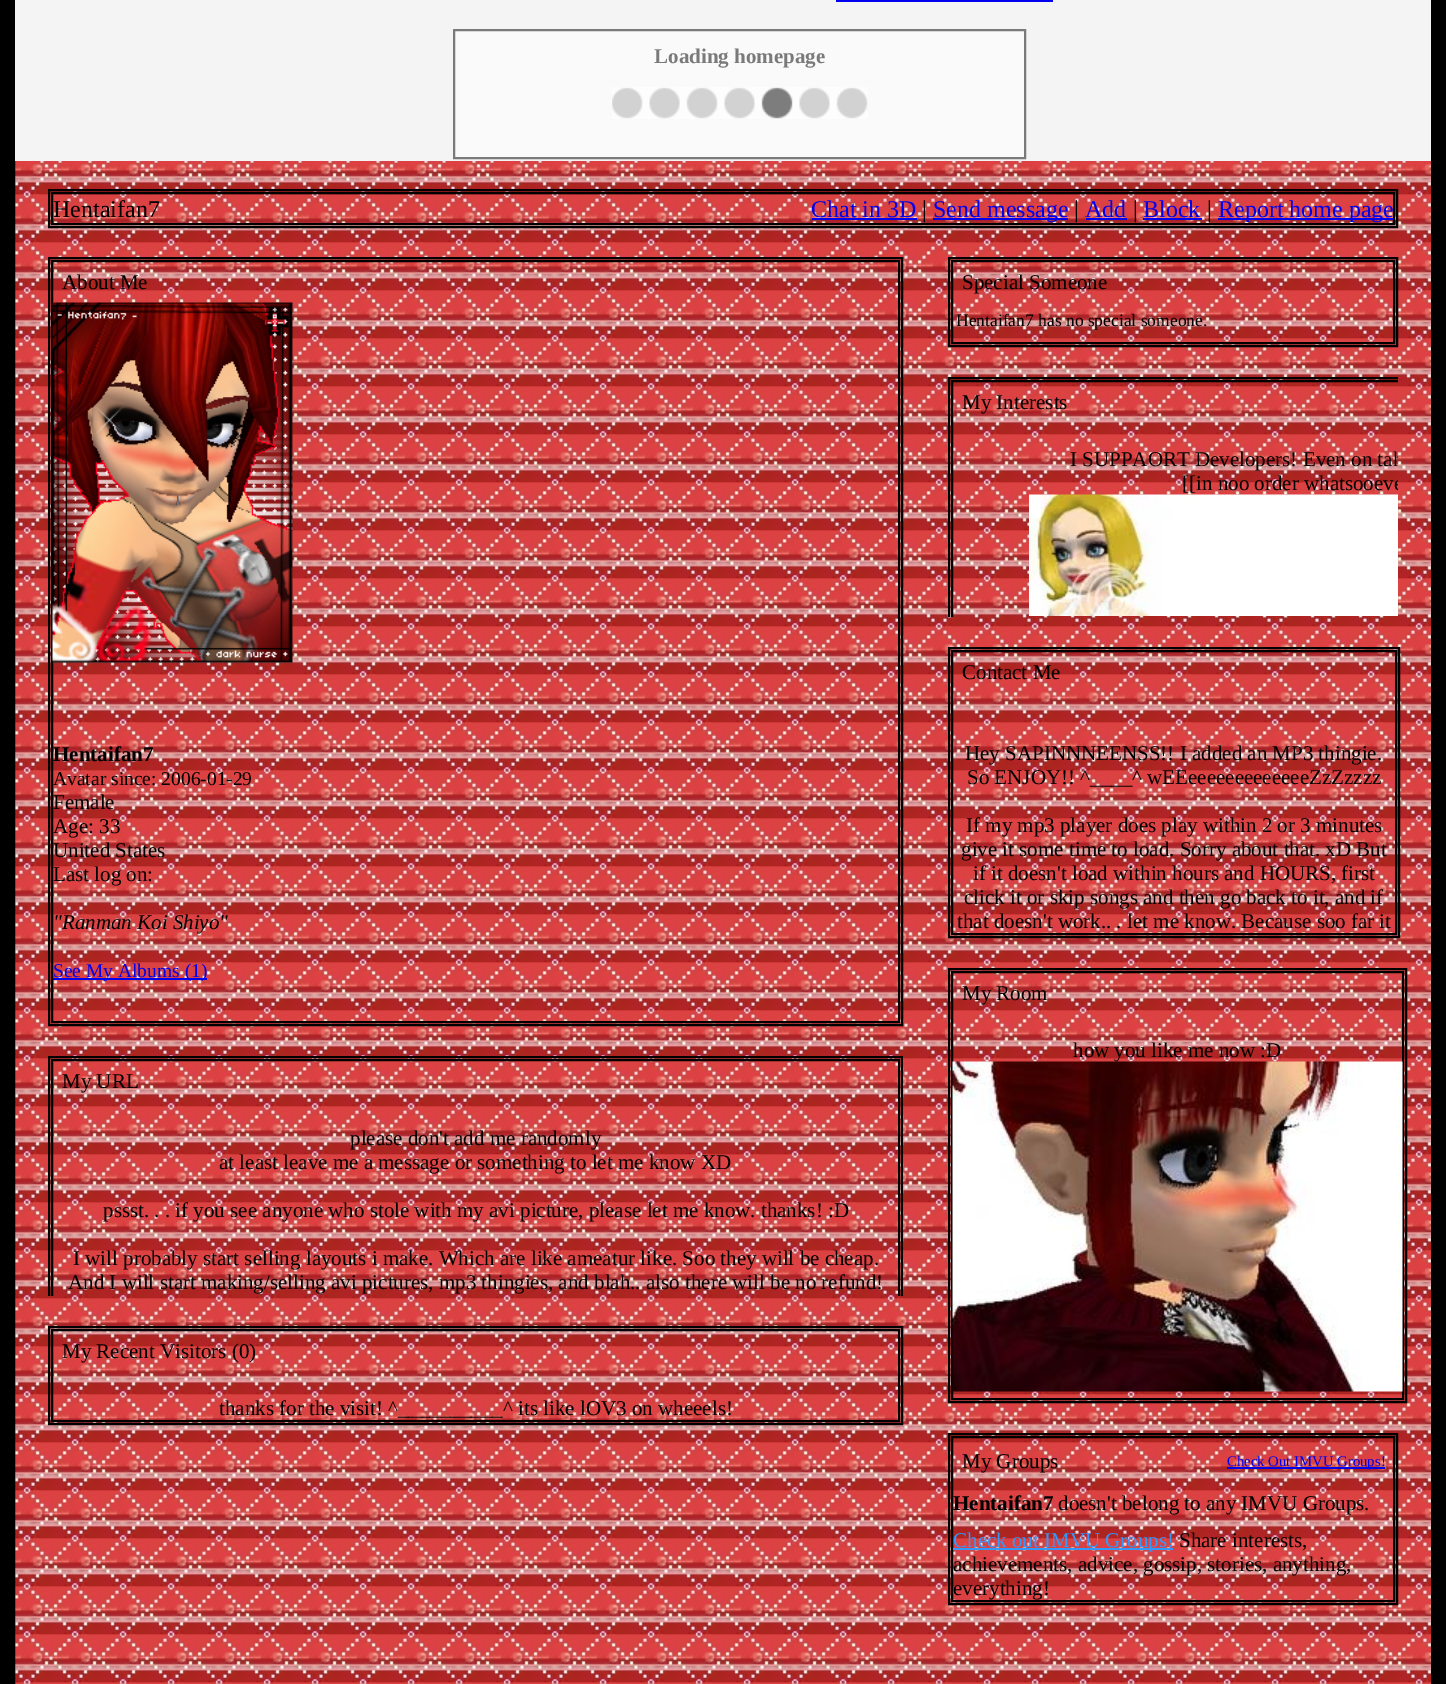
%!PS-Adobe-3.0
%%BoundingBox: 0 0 1446 1684
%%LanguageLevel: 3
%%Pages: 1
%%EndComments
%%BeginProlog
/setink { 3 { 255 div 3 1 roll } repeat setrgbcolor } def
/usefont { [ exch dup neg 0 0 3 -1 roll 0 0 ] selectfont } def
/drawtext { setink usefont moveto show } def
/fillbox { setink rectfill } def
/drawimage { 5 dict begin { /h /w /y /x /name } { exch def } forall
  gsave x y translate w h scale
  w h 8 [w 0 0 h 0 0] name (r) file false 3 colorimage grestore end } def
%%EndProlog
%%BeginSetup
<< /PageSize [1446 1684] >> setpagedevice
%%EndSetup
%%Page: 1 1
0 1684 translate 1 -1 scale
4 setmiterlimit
0 0 1446 1684 255 255 255 fillbox
(assets/img1.rgb) 15 161 1416 1523 drawimage
0 0 0 setink
15 setlinewidth
7.5 -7.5 1431 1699 rectstroke
15 0 1416 161 244 244 244 fillbox
836 0 217 2 0 0 238 fillbox
250 250 250 setink
454 30 moveto 1025 30 lineto 1025 158 lineto 454 158 lineto closepath gsave fill grestore
122 122 122 setink
2 setlinewidth
stroke
(Loading homepage) 654 63 /LiberationSerif-Bold 21 122 122 122 drawtext
(assets/img2.rgb) 612 87 256 32 drawimage
0 0 0 setink
49 190 1348 37 rectstroke
52 193 1342 31 rectstroke
(Hentaifan7) 53 217 /LiberationSerif-Regular 24 0 0 0 drawtext
(Chat in 3D) 811 217 /LiberationSerif-Regular 24 0 0 238 drawtext
812 218 105 2 0 0 238 fillbox
(|) 922 217 /LiberationSerif-Regular 24 0 0 0 drawtext
933 218 135 2 0 0 238 fillbox
(Send message) 933 217 /LiberationSerif-Regular 24 0 0 238 drawtext
(|) 1074 217 /LiberationSerif-Regular 24 0 0 0 drawtext
(Add) 1085 217 /LiberationSerif-Regular 24 0 0 238 drawtext
1086 218 41 2 0 0 238 fillbox
(|) 1133 217 /LiberationSerif-Regular 24 0 0 0 drawtext
(Block) 1143 217 /LiberationSerif-Regular 24 0 0 238 drawtext
1143 218 59 2 0 0 238 fillbox
(|) 1207 217 /LiberationSerif-Regular 24 0 0 0 drawtext
1218 218 176 2 0 0 238 fillbox
(Report home page) 1218 217 /LiberationSerif-Regular 24 0 0 238 drawtext
0 0 0 setink
49 258 853 767 rectstroke
52 261 847 761 rectstroke
(About Me) 62 289 /LiberationSerif-Regular 21 0 0 0 drawtext
(assets/img3.rgb) 52 302 241 361 drawimage
(Hentaifan7) 53 761 /LiberationSerif-Bold 21 0 0 0 drawtext
(Avatar since: 2006-01-29) 53 785 /LiberationSerif-Regular 19.5 0 0 0 drawtext
(Female) 53 809 /LiberationSerif-Regular 21 0 0 0 drawtext
(Age: 33) 53 833 /LiberationSerif-Regular 21 0 0 0 drawtext
(United States) 53 857 /LiberationSerif-Regular 21 0 0 0 drawtext
(Last log on:) 53 881 /LiberationSerif-Regular 21 0 0 0 drawtext
("Ranman Koi Shiyo") 53 929 /LiberationSerif-Italic 21 0 0 0 drawtext
53 978 154 2 0 0 238 fillbox
(See My Albums \(1\)) 53 977 /LiberationSerif-Regular 19.5 0 0 238 drawtext
gsave
48 1056 855 240 rectclip
0 0 0 setink
49 1057 853 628 rectstroke
52 1060 847 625 rectstroke
grestore
(My URL) 62 1088 /LiberationSerif-Regular 21 0 0 0 drawtext
(please don't add me randomly) 350 1145 /LiberationSerif-Regular 21 0 0 0 drawtext
(at least leave me a message or something to let me know XD) 219 1169 /LiberationSerif-Regular 21 0 0 0 drawtext
(pssst. . . if you see anyone who stole with my avi picture, please let me know. thanks! :D) 103 1217 /LiberationSerif-Regular 21 0 0 0 drawtext
(I will probably start selling layouts i make. Which are like ameatur like. Soo they will be cheap.) 73 1265 /LiberationSerif-Regular 21 0 0 0 drawtext
(And I will start making/selling avi pictures, mp3 thingies, and blah.. also there will be no refund!) 68 1289 /LiberationSerif-Regular 21 0 0 0 drawtext
49 1327 853 97 rectstroke
52 1330 847 91 rectstroke
(My Recent Visitors \(0\)) 62 1358 /LiberationSerif-Regular 21 0 0 0 drawtext
(thanks for the visit! ^__________^ its like lOV3 on wheeels!) 219 1415 /LiberationSerif-Regular 21 0 0 0 drawtext
949 258 448 88 rectstroke
952 261 442 82 rectstroke
(Special Someone) 962 289 /LiberationSerif-Regular 21 0 0 0 drawtext
(Hentaifan7 has no special someone.) 956 326 /LiberationSerif-Regular 17.5 0 0 0 drawtext
gsave
948 377 450 240 rectclip
949 378 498 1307 rectstroke
952 381 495 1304 rectstroke
grestore
(My Interests) 962 409 /LiberationSerif-Regular 21 0 0 0 drawtext
gsave
948 377 450 240 rectclip
(I SUPPAORT Developers! Even on tah) 1070 466 /LiberationSerif-Regular 21 0 0 0 drawtext
([[in noo order whatsooeve) 1182 490 /LiberationSerif-Regular 21 0 0 0 drawtext
grestore
(assets/img4.rgb) 1029 494 369 122 drawimage
949 648 450 289 rectstroke
952 651 444 283 rectstroke
(Contact Me) 962 679 /LiberationSerif-Regular 21 0 0 0 drawtext
(Hey SAPINNNEENSS!! I added an MP3 thingie.) 965 760 /LiberationSerif-Regular 21 0 0 0 drawtext
(So ENJOY!! ^____^ wEEeeeeeeeeeeeeeZzZzzzz) 967 784 /LiberationSerif-Regular 21 0 0 0 drawtext
(If my mp3 player does play within 2 or 3 minutes) 966 832 /LiberationSerif-Regular 21 0 0 0 drawtext
(give it some time to load. Sorry about that. xD But) 961 856 /LiberationSerif-Regular 21 0 0 0 drawtext
(if it doesn't load within hours and HOURS, first) 973 880 /LiberationSerif-Regular 21 0 0 0 drawtext
(click it or skip songs and then go back to it, and if) 964 904 /LiberationSerif-Regular 21 0 0 0 drawtext
(that doesn't work.. . let me know. Because soo far it) 957 928 /LiberationSerif-Regular 21 0 0 0 drawtext
949 969 457 433 rectstroke
952 972 451 427 rectstroke
(My Room) 962 1000 /LiberationSerif-Regular 21 0 0 0 drawtext
(how you like me now :D) 1073 1057 /LiberationSerif-Regular 21 0 0 0 drawtext
(assets/img5.rgb) 952 1061 451 331 drawimage
949 1434 448 170 rectstroke
952 1437 442 164 rectstroke
(My Groups) 962 1468 /LiberationSerif-Regular 21 0 0 0 drawtext
1227 1467 158 2 0 0 238 fillbox
(Check Out IMVU Groups!) 1227 1466 /LiberationSerif-Regular 14.75 0 0 238 drawtext
(Hentaifan7) 953 1510 /LiberationSerif-Bold 21 0 0 0 drawtext
(doesn't belong to any IMVU Groups.) 1058 1510 /LiberationSerif-Regular 21 0 0 0 drawtext
953 1548 220 2 51 153 255 fillbox
(Check out IMVU Groups!) 953 1547 /LiberationSerif-Regular 21 51 153 255 drawtext
(Share interests,) 1179 1547 /LiberationSerif-Regular 21 0 0 0 drawtext
(achievements, advice, gossip, stories, anything,) 953 1571 /LiberationSerif-Regular 21 0 0 0 drawtext
(everything!) 953 1595 /LiberationSerif-Regular 21 0 0 0 drawtext
showpage
%%EOF
